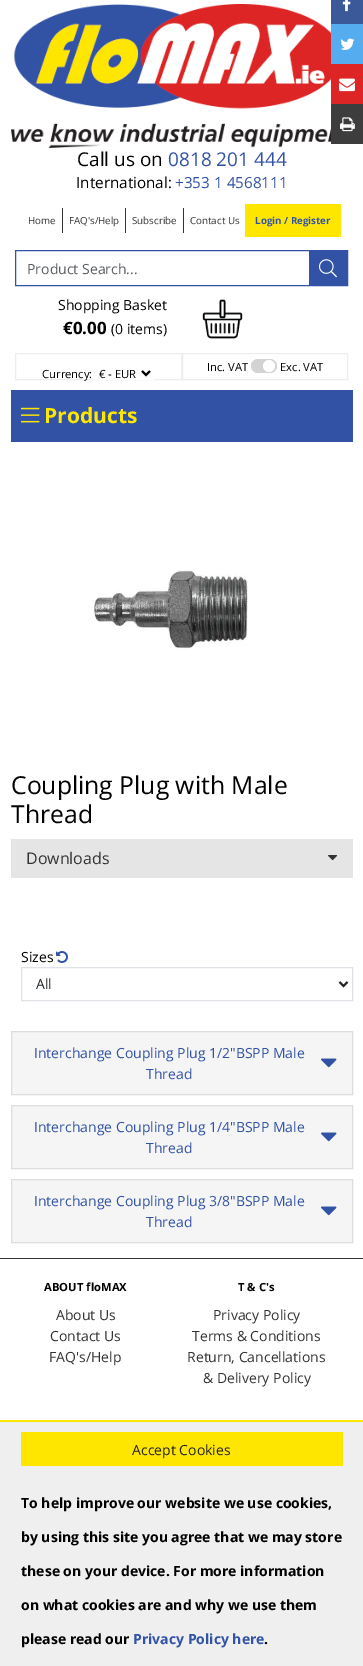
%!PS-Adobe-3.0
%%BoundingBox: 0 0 363 1666
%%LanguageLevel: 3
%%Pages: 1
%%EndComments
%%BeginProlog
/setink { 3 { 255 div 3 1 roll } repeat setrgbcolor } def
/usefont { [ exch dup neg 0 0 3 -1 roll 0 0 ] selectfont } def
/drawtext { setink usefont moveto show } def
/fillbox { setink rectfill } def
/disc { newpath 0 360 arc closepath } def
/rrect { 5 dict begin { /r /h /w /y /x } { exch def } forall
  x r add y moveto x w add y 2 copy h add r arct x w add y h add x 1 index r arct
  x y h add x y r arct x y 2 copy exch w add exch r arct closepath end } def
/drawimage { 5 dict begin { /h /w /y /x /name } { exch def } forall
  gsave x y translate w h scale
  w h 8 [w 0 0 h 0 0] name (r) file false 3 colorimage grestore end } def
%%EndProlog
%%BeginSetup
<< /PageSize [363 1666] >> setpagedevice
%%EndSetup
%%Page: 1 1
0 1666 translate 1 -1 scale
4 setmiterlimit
0 0 363 1666 255 255 255 fillbox
331 0 32 24 59 89 152 fillbox
(assets/img1.rgb) 342 0 9 12 drawimage
331 24 32 40 85 172 238 fillbox
(assets/img2.rgb) 340 38 15 12 drawimage
331 64 32 40 222 37 38 fillbox
(assets/img3.rgb) 339 78 16 14 drawimage
331 104 32 40 61 61 61 fillbox
(assets/img4.rgb) 340 117 15 15 drawimage
(assets/img5.rgb) 11 4 320 144 drawimage
(Call us on) 77 166 /OpenSans-Regular 19 0 0 0 drawtext
(0818 201 444) 168 166 /OpenSans-Regular 19 50 83 165 drawtext
(International:) 76 188 /OpenSans-Regular 15.25 0 0 0 drawtext
(+353 1 4568111) 175 188 /OpenSans-Regular 15.25 50 83 165 drawtext
(Home) 28 224 /OpenSans-Regular 9.75 51 51 51 drawtext
62 208 1 25 51 51 51 fillbox
(FAQ's/Help) 69 224 /OpenSans-Regular 9.75 51 51 51 drawtext
125 208 1 25 51 51 51 fillbox
(Subscribe) 132 224 /OpenSans-Regular 9.75 51 51 51 drawtext
183 208 1 25 51 51 51 fillbox
(Contact Us) 190 224 /OpenSans-Regular 9.75 51 51 51 drawtext
245 204 96 33 255 230 0 fillbox
(Login / Register) 255 224 /OpenSans-Bold 9.75 50 83 165 drawtext
15.5 250.5 332 35 rectstroke
(Product Search...) 27 274 /OpenSans-Regular 14 89 92 95 drawtext
309 251 38 34 50 83 165 fillbox
(assets/img6.rgb) 319 259 18 19 drawimage
(Shopping Basket) 58 310 /OpenSans-Regular 14 0 0 0 drawtext
(€0.00) 63 334 /OpenSans-Bold 17 0 0 0 drawtext
(\(0 items\)) 111 334 /OpenSans-Regular 14 0 0 0 drawtext
(assets/img7.rgb) 202 299 41 40 drawimage
238 238 238 setink
182.5 353.5 165 26 rectstroke
(Inc. VAT) 207 371 /OpenSans-Regular 11.25 0 0 0 drawtext
211 211 211 setink
251 359 26 14 7 rrect fill
255 255 255 setink
269 366 6 disc fill
(Exc. VAT) 280 371 /OpenSans-Regular 11.25 0 0 0 drawtext
238 238 238 setink
15.5 353.5 166 26 rectstroke
(Currency:) 42 378 /OpenSans-Regular 11.25 0 0 0 drawtext
95 379 59 1 255 255 255 fillbox
0 0 0 setink
2 setlinewidth
142 371 moveto 146 375 lineto 150 371 lineto stroke
(€ - EUR) 99 378 /OpenSans-Regular 11.25 0 0 0 drawtext
11 390 342 52 50 83 165 fillbox
(assets/img8.rgb) 21 407 19 16 drawimage
(Products) 44 423 /OpenSans-Bold 21 255 230 0 drawtext
(assets/img9.rgb) 92 570 156 80 drawimage
(Coupling Plug with Male) 11 794 /OpenSans-Regular 24.75 0 0 0 drawtext
(Thread) 11 823 /OpenSans-Regular 24.75 0 0 0 drawtext
11 839 342 39 229 229 229 fillbox
(Downloads) 26 864 /OpenSans-Regular 16 51 51 51 drawtext
(assets/img10.rgb) 328 855 10 6 drawimage
(Sizes) 21 962 /OpenSans-Regular 14 0 0 0 drawtext
(assets/img11.rgb) 56 951 12 12 drawimage
222 226 230 setink
1 setlinewidth
21.5 967.5 331 33 rectstroke
33 37 41 setink
2 setlinewidth
339.5 982 moveto 343.5 986 lineto 347.5 982 lineto stroke
(All) 36 989 /OpenSans-Regular 14 33 37 41 drawtext
245 245 245 setink
11.5 1031.5 moveto 352.5 1031.5 lineto 352.5 1094.5 lineto 11.5 1094.5 lineto closepath gsave fill grestore
221 221 221 setink
1 setlinewidth
stroke
(Interchange Coupling Plug 1/2"BSPP Male) 34 1058 /OpenSans-Regular 14 50 83 165 drawtext
(assets/img12.rgb) 321 1058 16 10 drawimage
(Thread) 146 1079 /OpenSans-Regular 14 50 83 165 drawtext
245 245 245 setink
11.5 1105.5 moveto 352.5 1105.5 lineto 352.5 1168.5 lineto 11.5 1168.5 lineto closepath gsave fill grestore
221 221 221 setink
stroke
(Interchange Coupling Plug 1/4"BSPP Male) 34 1132 /OpenSans-Regular 14 50 83 165 drawtext
(assets/img12.rgb) 321 1132 16 10 drawimage
(Thread) 146 1153 /OpenSans-Regular 14 50 83 165 drawtext
245 245 245 setink
11.5 1179.5 moveto 352.5 1179.5 lineto 352.5 1242.5 lineto 11.5 1242.5 lineto closepath gsave fill grestore
221 221 221 setink
stroke
(Interchange Coupling Plug 3/8"BSPP Male) 34 1206 /OpenSans-Regular 14 50 83 165 drawtext
(assets/img12.rgb) 321 1206 16 10 drawimage
(Thread) 146 1227 /OpenSans-Regular 14 50 83 165 drawtext
0 1258 363 1 51 51 51 fillbox
(ABOUT floMAX) 44 1291 /OpenSans-Bold 11.25 0 0 0 drawtext
(About Us) 56 1320 /OpenSans-Regular 14 51 51 51 drawtext
(Contact Us) 50 1341 /OpenSans-Regular 14 51 51 51 drawtext
(FAQ's/Help) 49 1362 /OpenSans-Regular 14 51 51 51 drawtext
(T & C's) 238 1291 /OpenSans-Bold 11.25 0 0 0 drawtext
(Privacy Policy) 213 1320 /OpenSans-Regular 14 51 51 51 drawtext
(Terms & Conditions) 192 1341 /OpenSans-Regular 14 51 51 51 drawtext
(Return, Cancellations) 187 1362 /OpenSans-Regular 14 51 51 51 drawtext
(& Delivery Policy) 203 1383 /OpenSans-Regular 14 51 51 51 drawtext
0 1422 363 244 239 239 239 fillbox
0 1420 363 2 255 230 0 fillbox
21 1432 322 34 255 230 0 fillbox
(Accept Cookies) 132 1455 /OpenSans-Regular 14 34 34 34 drawtext
(To help improve our website we use cookies,) 21 1508 /OpenSans-Bold 14 0 0 0 drawtext
(by using this site you agree that we may store) 21 1542 /OpenSans-Bold 14 0 0 0 drawtext
(these on your device. For more information) 21 1576 /OpenSans-Bold 14 0 0 0 drawtext
(on what cookies are and why we use them) 21 1610 /OpenSans-Bold 14 0 0 0 drawtext
(please read our) 21 1644 /OpenSans-Bold 14 0 0 0 drawtext
(Privacy Policy here) 133 1644 /OpenSans-Bold 14 50 83 165 drawtext
(.) 264 1644 /OpenSans-Bold 14 0 0 0 drawtext
showpage
%%EOF
